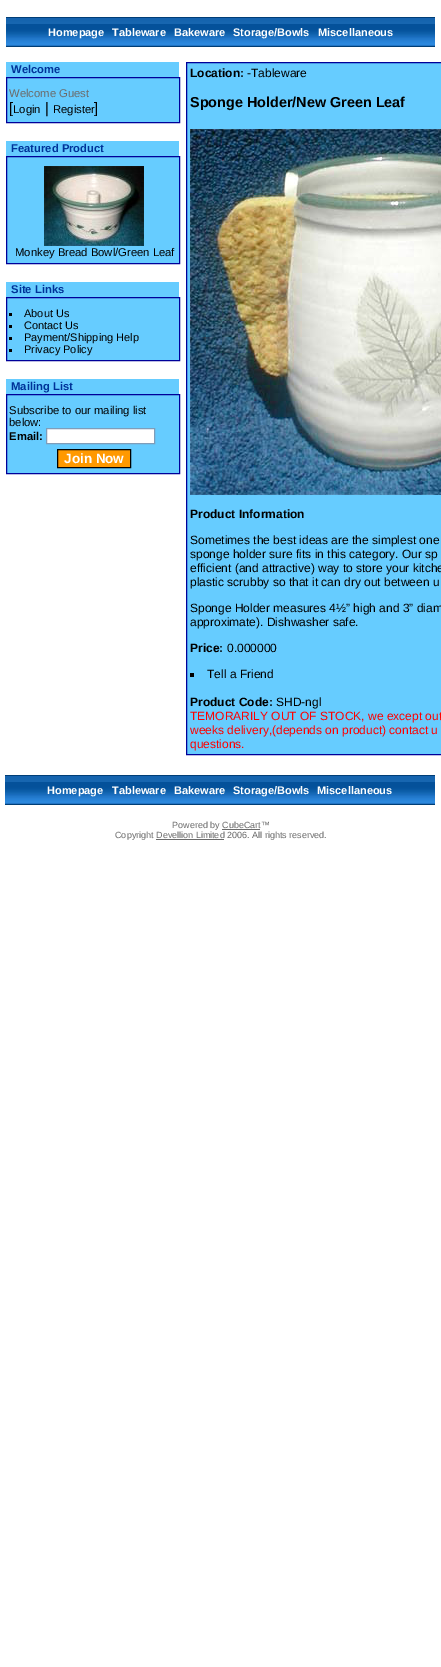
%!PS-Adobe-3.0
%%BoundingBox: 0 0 441 1667
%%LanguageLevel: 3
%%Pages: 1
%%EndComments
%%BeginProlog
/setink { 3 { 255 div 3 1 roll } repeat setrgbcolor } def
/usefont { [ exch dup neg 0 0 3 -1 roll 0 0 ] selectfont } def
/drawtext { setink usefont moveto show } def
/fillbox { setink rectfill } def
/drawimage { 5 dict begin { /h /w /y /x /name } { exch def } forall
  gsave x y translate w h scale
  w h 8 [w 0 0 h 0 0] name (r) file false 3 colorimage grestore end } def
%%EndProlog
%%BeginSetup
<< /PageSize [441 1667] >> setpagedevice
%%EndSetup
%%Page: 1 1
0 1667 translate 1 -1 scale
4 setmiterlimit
0 0 441 1667 255 255 255 fillbox
(assets/img1.rgb) 6 17 429 30 drawimage
(Homepage) 48 36 /LiberationSans-Bold 11 255 255 255 drawtext
(Tableware) 112 36 /LiberationSans-Bold 11 255 255 255 drawtext
(Bakeware) 174 36 /LiberationSans-Bold 11 255 255 255 drawtext
(Storage/Bowls) 233 36 /LiberationSans-Bold 11 255 255 255 drawtext
(Miscellaneous) 318 36 /LiberationSans-Bold 11 255 255 255 drawtext
6 62 173 15 102 204 255 fillbox
(Welcome) 11 73 /LiberationSans-Bold 11.25 0 51 153 drawtext
102 204 255 setink
6.5 77.5 moveto 179.5 77.5 lineto 179.5 122.5 lineto 6.5 122.5 lineto closepath gsave fill grestore
0 0 153 setink
stroke
(Welcome Guest) 9 97 /LiberationSans-Regular 11.25 107 107 107 drawtext
([) 9 113 /LiberationSans-Regular 15 0 0 0 drawtext
(Login) 13 113 /LiberationSans-Regular 11.25 0 0 0 drawtext
(|) 45 113 /LiberationSans-Regular 15 0 0 0 drawtext
(Register) 53 113 /LiberationSans-Regular 11.25 0 0 0 drawtext
(]) 94 113 /LiberationSans-Regular 15 0 0 0 drawtext
6 141 173 15 102 204 255 fillbox
(Featured Product) 11 152 /LiberationSans-Bold 11.25 0 51 153 drawtext
102 204 255 setink
6.5 156.5 moveto 179.5 156.5 lineto 179.5 263.5 lineto 6.5 263.5 lineto closepath gsave fill grestore
0 0 153 setink
stroke
(assets/img2.rgb) 44 166 100 80 drawimage
(Monkey Bread Bowl/Green Leaf) 15 256 /LiberationSans-Regular 11.25 0 0 0 drawtext
6 282 173 15 102 204 255 fillbox
(Site Links) 11 293 /LiberationSans-Bold 11.25 0 51 153 drawtext
102 204 255 setink
6.5 297.5 moveto 179.5 297.5 lineto 179.5 360.5 lineto 6.5 360.5 lineto closepath gsave fill grestore
0 0 153 setink
stroke
9 313 3 3 0 0 0 fillbox
(About Us) 24 317 /LiberationSans-Regular 11 0 0 0 drawtext
9 325 3 3 0 0 0 fillbox
(Contact Us) 24 329 /LiberationSans-Regular 11 0 0 0 drawtext
9 337 3 3 0 0 0 fillbox
(Payment/Shipping Help) 24 341 /LiberationSans-Regular 11 0 0 0 drawtext
9 349 3 3 0 0 0 fillbox
(Privacy Policy) 24 353 /LiberationSans-Regular 11 0 0 0 drawtext
6 379 173 15 102 204 255 fillbox
(Mailing List) 11 390 /LiberationSans-Bold 11.25 0 51 153 drawtext
102 204 255 setink
6.5 394.5 moveto 179.5 394.5 lineto 179.5 473.5 lineto 6.5 473.5 lineto closepath gsave fill grestore
0 0 153 setink
stroke
(Subscribe to our mailing list) 9 414 /LiberationSans-Regular 11.25 0 0 0 drawtext
(below:) 9 426 /LiberationSans-Regular 11.25 0 0 0 drawtext
(Email:) 9 440 /LiberationSans-Bold 11.25 0 0 0 drawtext
255 255 255 setink
46.5 428.5 moveto 154.5 428.5 lineto 154.5 443.5 lineto 46.5 443.5 lineto closepath gsave fill grestore
127 157 185 setink
stroke
255 153 0 setink
57.5 449.5 moveto 130.5 449.5 lineto 130.5 467.5 lineto 57.5 467.5 lineto closepath gsave fill grestore
0 0 0 setink
stroke
(Join Now) 64 463 /LiberationSans-Bold 13.5 255 255 255 drawtext
102 204 255 setink
186.5 62.5 moveto 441.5 62.5 lineto 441.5 754.5 lineto 186.5 754.5 lineto closepath gsave fill grestore
0 0 153 setink
stroke
(Location:) 190 77 /LiberationSans-Bold 12 0 0 0 drawtext
(-Tableware) 247 77 /LiberationSans-Regular 12 0 0 0 drawtext
(Sponge Holder/New Green Leaf) 190 107 /LiberationSans-Bold 14.4 0 0 0 drawtext
(assets/img3.rgb) 190 129 251 366 drawimage
(Product Information) 190 518 /LiberationSans-Bold 12 0 0 0 drawtext
(Sometimes the best ideas are the simplest one) 190 544 /LiberationSans-Regular 12 0 0 0 drawtext
(sponge holder sure fits in this category. Our sp) 190 558 /LiberationSans-Regular 12 0 0 0 drawtext
(efficient \(and attractive\) way to store your kitche) 190 572 /LiberationSans-Regular 12 0 0 0 drawtext
(plastic scrubby so that it can dry out between u) 190 586 /LiberationSans-Regular 12 0 0 0 drawtext
(Sponge Holder measures 4½” high and 3” diam) 190 612 /LiberationSans-Regular 12 0 0 0 drawtext
(approximate\). Dishwasher safe.) 190 626 /LiberationSans-Regular 12 0 0 0 drawtext
(Price:) 190 652 /LiberationSans-Bold 12 0 0 0 drawtext
(0.000000) 227 652 /LiberationSans-Regular 12 0 0 0 drawtext
190 673 4 4 0 0 0 fillbox
(Tell a Friend) 207 678 /LiberationSans-Regular 12 0 0 0 drawtext
(Product Code:) 190 706 /LiberationSans-Bold 12 0 0 0 drawtext
(SHD-ngl) 276 706 /LiberationSans-Regular 12 0 0 0 drawtext
(TEMORARILY OUT OF STOCK, we except out) 190 720 /LiberationSans-Regular 12 255 0 0 drawtext
(weeks delivery,\(depends on product\) contact u) 190 734 /LiberationSans-Regular 12 255 0 0 drawtext
(questions.) 190 748 /LiberationSans-Regular 12 255 0 0 drawtext
(assets/img4.rgb) 5 775 430 30 drawimage
(Homepage) 47 794 /LiberationSans-Bold 11 255 255 255 drawtext
(Tableware) 112 794 /LiberationSans-Bold 11 255 255 255 drawtext
(Bakeware) 174 794 /LiberationSans-Bold 11 255 255 255 drawtext
(Storage/Bowls) 233 794 /LiberationSans-Bold 11 255 255 255 drawtext
(Miscellaneous) 317 794 /LiberationSans-Bold 11 255 255 255 drawtext
(Powered by CubeCart™) 172 828 /LiberationSans-Regular 9 107 107 107 drawtext
222 829 38 1 107 107 107 fillbox
(Copyright Devellion Limited 2006. All rights reserved.) 115 838 /LiberationSans-Regular 9 107 107 107 drawtext
156 839 68 1 107 107 107 fillbox
showpage
%%EOF
